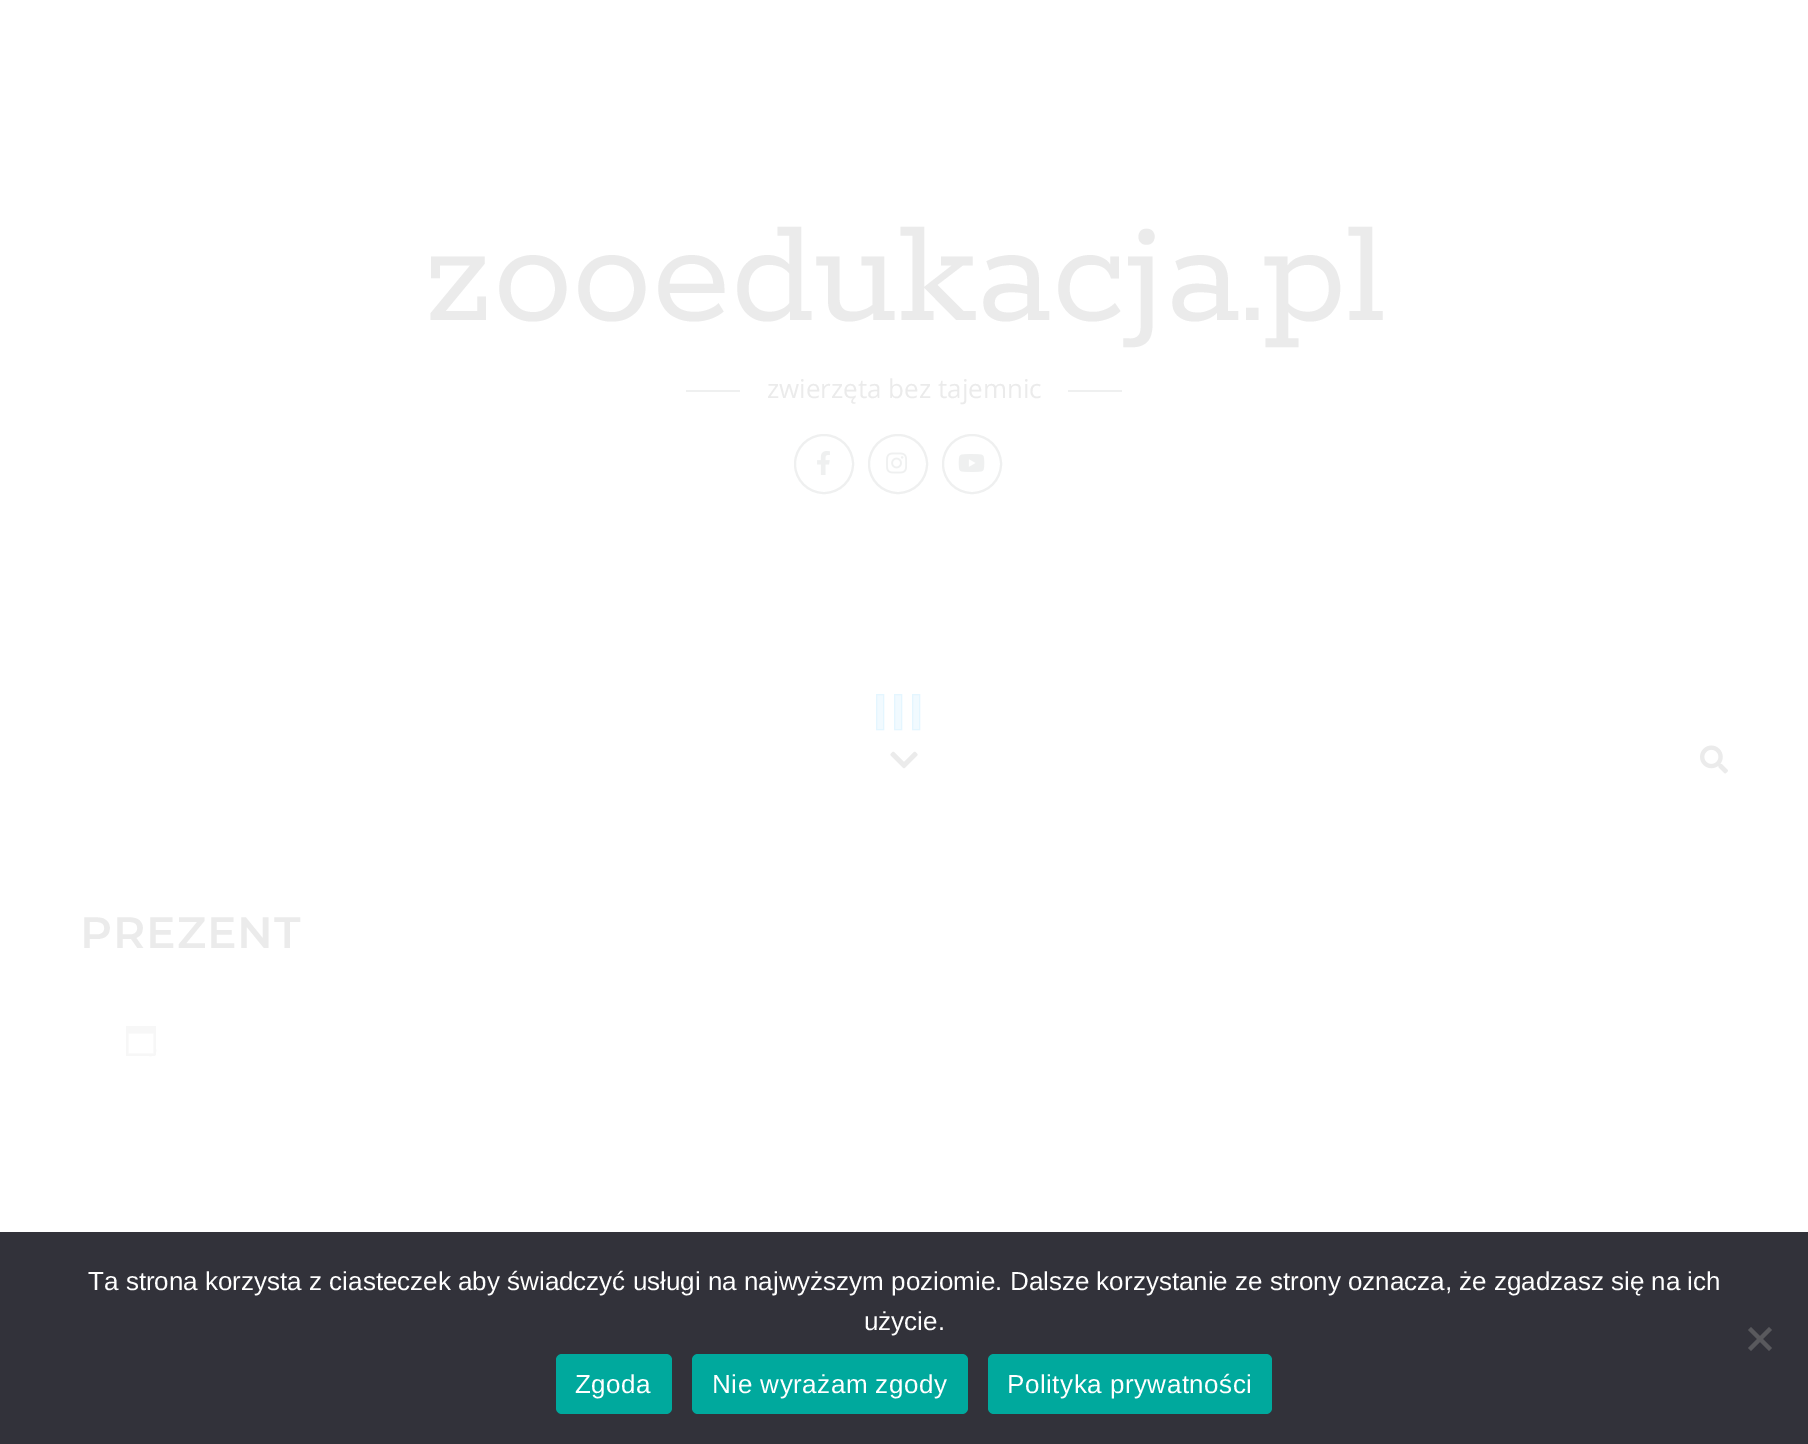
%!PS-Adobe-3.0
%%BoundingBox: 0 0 1808 1444
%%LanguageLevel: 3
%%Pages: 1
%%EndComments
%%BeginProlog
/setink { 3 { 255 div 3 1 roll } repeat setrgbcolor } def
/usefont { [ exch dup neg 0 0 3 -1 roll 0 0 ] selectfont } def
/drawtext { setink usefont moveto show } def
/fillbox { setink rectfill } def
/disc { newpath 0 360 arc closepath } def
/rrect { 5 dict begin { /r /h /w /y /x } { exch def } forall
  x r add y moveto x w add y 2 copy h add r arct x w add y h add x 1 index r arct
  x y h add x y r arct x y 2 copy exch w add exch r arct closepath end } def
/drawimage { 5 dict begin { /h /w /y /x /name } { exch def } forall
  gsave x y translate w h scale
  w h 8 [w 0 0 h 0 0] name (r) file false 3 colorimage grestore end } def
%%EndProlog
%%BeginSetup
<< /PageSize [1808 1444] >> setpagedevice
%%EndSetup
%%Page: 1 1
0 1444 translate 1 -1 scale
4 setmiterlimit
0 0 1808 1444 255 255 255 fillbox
(zooedukacja.pl) 422 320 /Rokkitt-Regular 160 235 235 235 drawtext
686 390 54 2 239 240 240 fillbox
(zwierzęta bez tajemnic) 767 398 /OpenSans-Regular 26 235 235 235 drawtext
1068 390 54 2 239 240 240 fillbox
2 setlinewidth
824 464 29 disc stroke
(assets/img1.rgb) 817 451 13 24 drawimage
898 464 29 disc stroke
(assets/img2.rgb) 886 452 22 22 drawimage
972 464 29 disc stroke
(assets/img3.rgb) 958 454 27 18 drawimage
(assets/img4.rgb) 890 751 28 18 drawimage
(assets/img5.rgb) 1700 745 28 29 drawimage
/Montserrat-SemiBold 44 usefont
235 235 235 setink
80 948 moveto 1 0 (PREZENT) ashow
247 247 247 setink
153.5 1033.5 moveto 128.5 1033.5 lineto 128.5 1053.5 lineto 153.5 1053.5 lineto closepath 156 1026 moveto 156 1049 lineto 156 1056.5 156.5 1056 149 1056 curveto 126 1056 lineto 126 1026 lineto closepath fill
241 250 255 setink
876.5 694.5 moveto 883.5 694.5 lineto 883.5 729.5 lineto 876.5 729.5 lineto closepath gsave fill grestore
228 246 255 setink
1 setlinewidth
stroke
241 250 255 setink
894.5 694.5 moveto 901.5 694.5 lineto 901.5 729.5 lineto 894.5 729.5 lineto closepath gsave fill grestore
228 246 255 setink
stroke
241 250 255 setink
912.5 694.5 moveto 919.5 694.5 lineto 919.5 729.5 lineto 912.5 729.5 lineto closepath gsave fill grestore
228 246 255 setink
stroke
0 1232 1808 212 50 50 58 fillbox
(Ta strona korzysta z ciasteczek aby świadczyć usługi na najwyższym poziomie. Dalsze korzystanie ze strony oznacza, że zgadzasz się na ich) 88 1290 /LiberationSans-Regular 26 255 255 255 drawtext
(użycie.) 864 1330 /LiberationSans-Regular 26 255 255 255 drawtext
89 89 93 setink
1769 1327 moveto 1772 1330 lineto 1751 1351 lineto 1748 1348 lineto closepath fill
1748 1330 moveto 1751 1327 lineto 1772 1348 lineto 1769 1351 lineto closepath fill
0 169 157 setink
556 1354 116 60 6 rrect fill
255 255 255 setink
575 1393 moveto 0.5 0 (Zgoda) ashow
0 169 157 setink
692 1354 276 60 6 rrect fill
255 255 255 setink
712 1393 moveto 0.5 0 (Nie wyrażam zgody) ashow
0 169 157 setink
988 1354 284 60 6 rrect fill
255 255 255 setink
1007 1393 moveto 0.5 0 (Polityka prywatności) ashow
showpage
%%EOF
